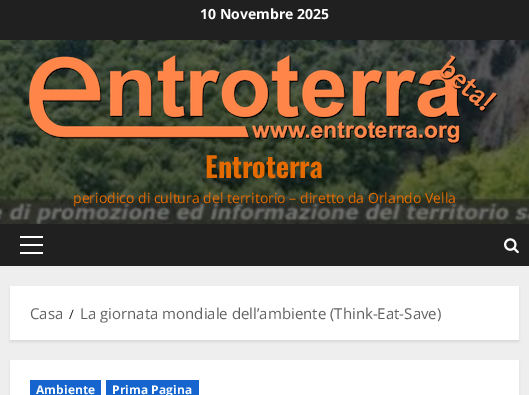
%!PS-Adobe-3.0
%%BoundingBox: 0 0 529 395
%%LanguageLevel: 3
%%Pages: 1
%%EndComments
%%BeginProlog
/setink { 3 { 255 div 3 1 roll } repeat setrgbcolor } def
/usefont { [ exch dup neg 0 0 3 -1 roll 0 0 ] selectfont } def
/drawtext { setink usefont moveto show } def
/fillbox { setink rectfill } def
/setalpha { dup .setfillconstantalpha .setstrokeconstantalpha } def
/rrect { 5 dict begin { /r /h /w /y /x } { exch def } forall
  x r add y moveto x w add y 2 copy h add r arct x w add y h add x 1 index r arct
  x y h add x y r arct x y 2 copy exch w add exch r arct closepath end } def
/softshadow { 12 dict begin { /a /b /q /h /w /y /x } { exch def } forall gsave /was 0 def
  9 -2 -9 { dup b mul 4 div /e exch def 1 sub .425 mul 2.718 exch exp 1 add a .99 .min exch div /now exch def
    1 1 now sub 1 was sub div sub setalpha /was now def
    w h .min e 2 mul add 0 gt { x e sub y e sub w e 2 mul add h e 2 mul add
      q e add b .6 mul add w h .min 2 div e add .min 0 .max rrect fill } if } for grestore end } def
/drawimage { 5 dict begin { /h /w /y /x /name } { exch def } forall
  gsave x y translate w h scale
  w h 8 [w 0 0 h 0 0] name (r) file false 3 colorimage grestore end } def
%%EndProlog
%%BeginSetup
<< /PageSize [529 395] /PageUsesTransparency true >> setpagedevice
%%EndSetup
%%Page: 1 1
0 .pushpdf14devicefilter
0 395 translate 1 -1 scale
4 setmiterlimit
0 0 529 395 238 238 238 fillbox
0 0 529 40 32 32 32 fillbox
(10 Novembre 2025) 200 19 /OpenSans-Bold 14 255 255 255 drawtext
(assets/img1.rgb) 0 40 529 184 drawimage
(assets/img2.rgb) 29 55 469 89 drawimage
(Entroterra) 205 178 /Oswald-Bold 28 229 107 0 drawtext
(periodico di cultura del territorio – diretto da Orlando Vella) 73 203 /OpenSans-Regular 14 229 107 0 drawtext
0 224 529 42 32 32 32 fillbox
20 244 23 2 255 255 255 fillbox
20 236 23 2 255 255 255 fillbox
20 252 23 2 255 255 255 fillbox
(assets/img3.rgb) 504 238 15 16 drawimage
0 0 0 setink
10 288 509 54 0 1 0.08 softshadow
10 286 509 54 255 255 255 fillbox
(Casa) 30 319 /OpenSans-Regular 15 98 98 98 drawtext
(/) 69 319 /OpenSans-Regular 13 31 31 31 drawtext
(La giornata mondiale dell’ambiente \(Think-Eat-Save\)) 80 319 /OpenSans-Regular 15 98 98 98 drawtext
0 0 0 setink
10 362 509 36 0 1 0.08 softshadow
10 360 509 35 255 255 255 fillbox
30 380 71 15 22 101 207 fillbox
/OpenSans-Bold 12 usefont
255 255 255 setink
36 394 moveto 0.1 0 (Ambiente) ashow
106 380 93 15 22 101 207 fillbox
255 255 255 setink
112 394 moveto 0.1 0 (Prima Pagina) ashow
.poppdf14devicefilter showpage
%%EOF
